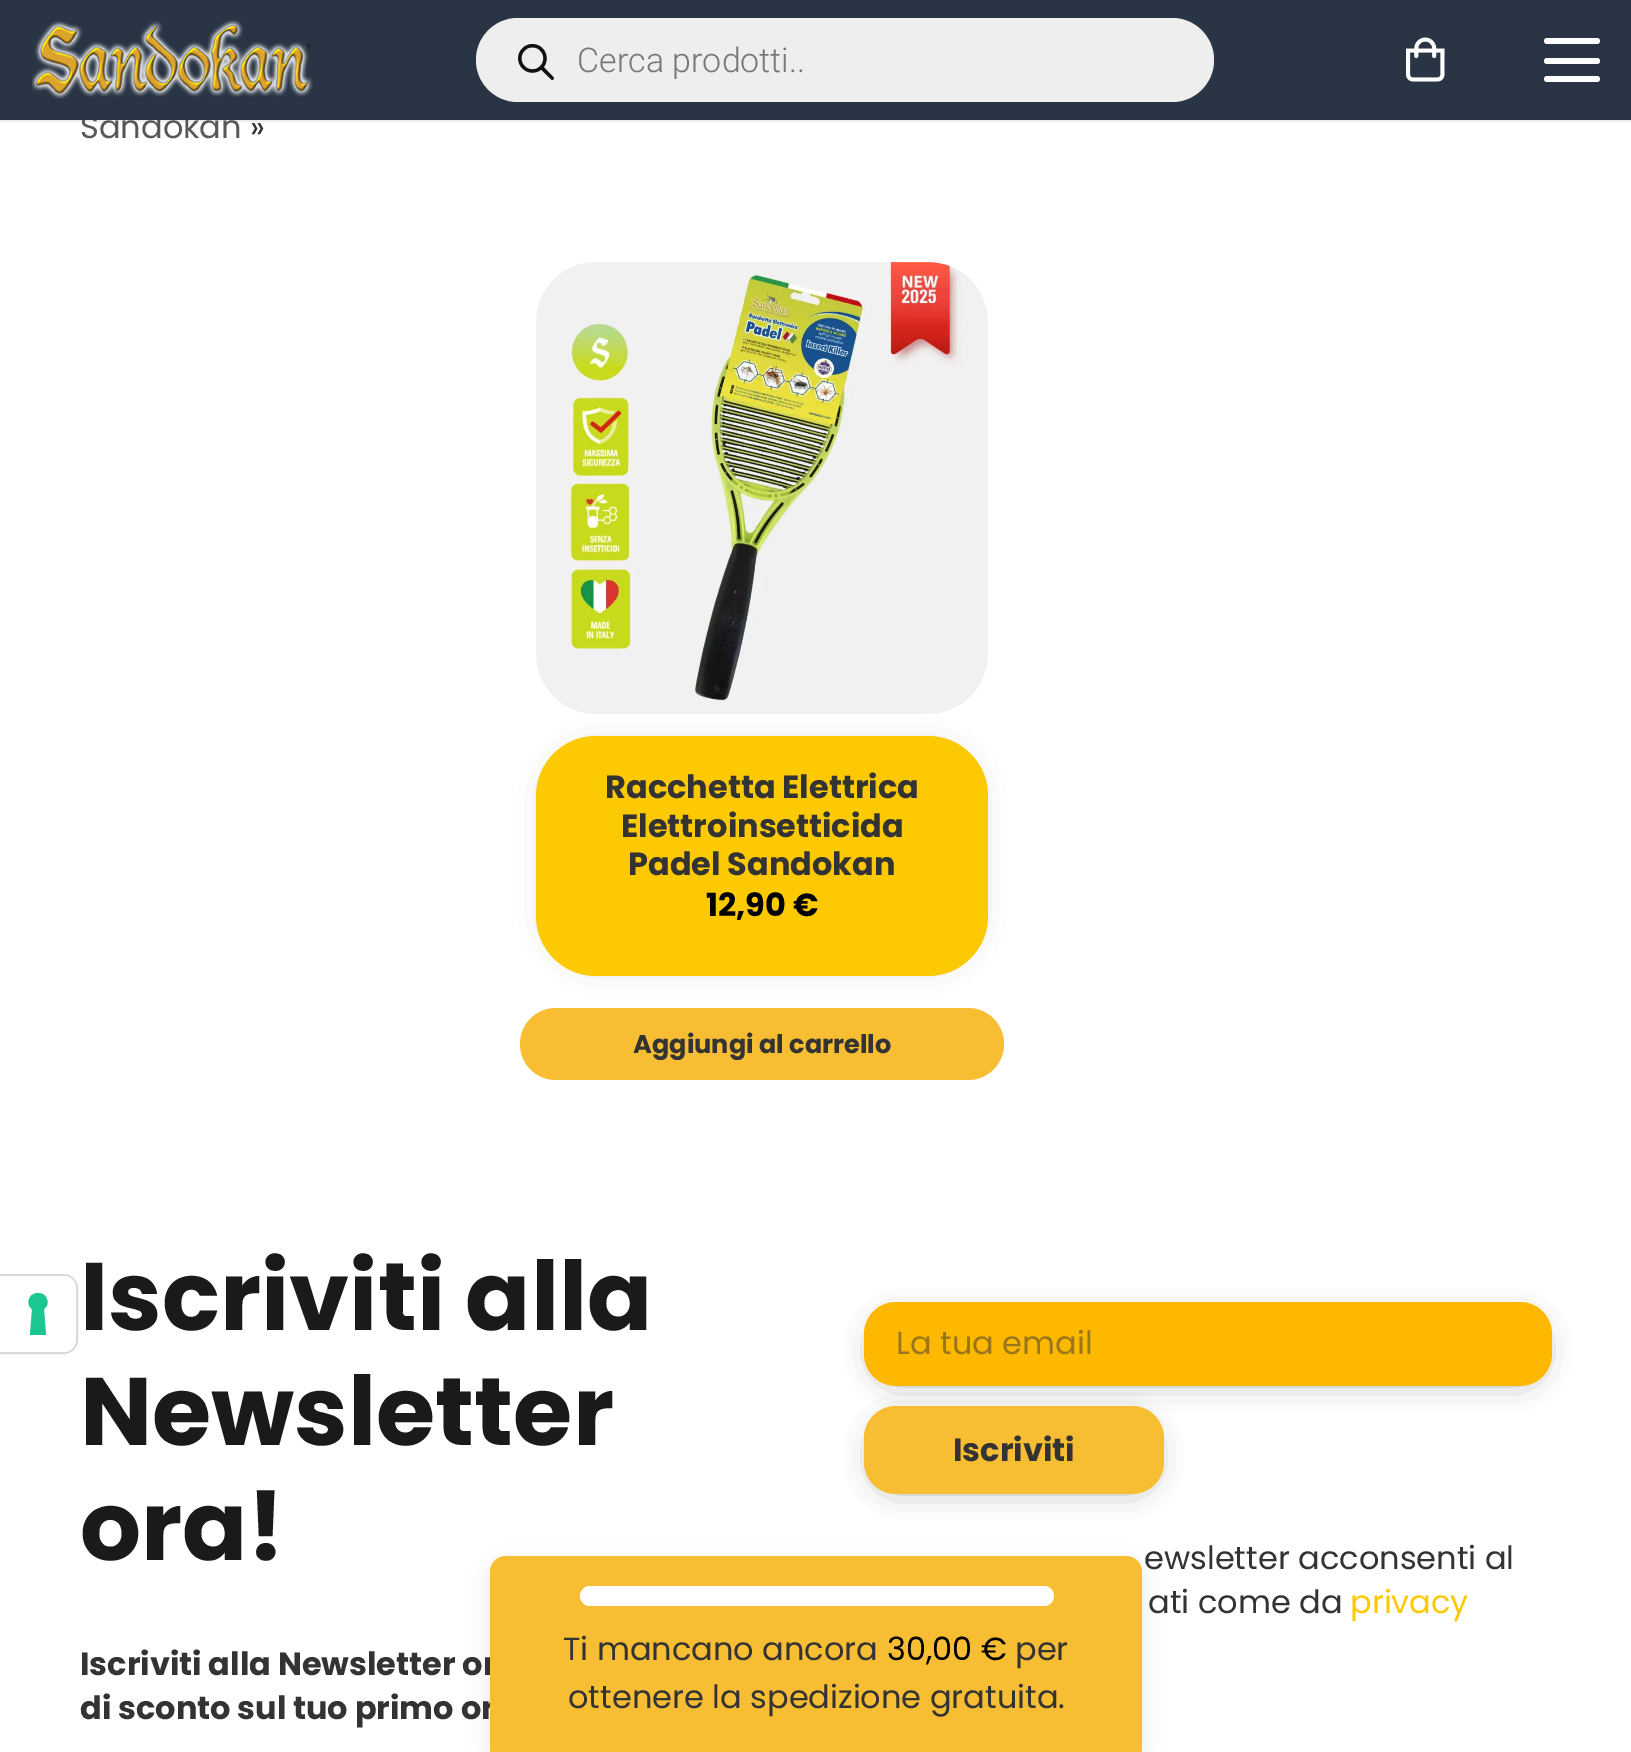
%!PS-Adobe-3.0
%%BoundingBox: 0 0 1631 1752
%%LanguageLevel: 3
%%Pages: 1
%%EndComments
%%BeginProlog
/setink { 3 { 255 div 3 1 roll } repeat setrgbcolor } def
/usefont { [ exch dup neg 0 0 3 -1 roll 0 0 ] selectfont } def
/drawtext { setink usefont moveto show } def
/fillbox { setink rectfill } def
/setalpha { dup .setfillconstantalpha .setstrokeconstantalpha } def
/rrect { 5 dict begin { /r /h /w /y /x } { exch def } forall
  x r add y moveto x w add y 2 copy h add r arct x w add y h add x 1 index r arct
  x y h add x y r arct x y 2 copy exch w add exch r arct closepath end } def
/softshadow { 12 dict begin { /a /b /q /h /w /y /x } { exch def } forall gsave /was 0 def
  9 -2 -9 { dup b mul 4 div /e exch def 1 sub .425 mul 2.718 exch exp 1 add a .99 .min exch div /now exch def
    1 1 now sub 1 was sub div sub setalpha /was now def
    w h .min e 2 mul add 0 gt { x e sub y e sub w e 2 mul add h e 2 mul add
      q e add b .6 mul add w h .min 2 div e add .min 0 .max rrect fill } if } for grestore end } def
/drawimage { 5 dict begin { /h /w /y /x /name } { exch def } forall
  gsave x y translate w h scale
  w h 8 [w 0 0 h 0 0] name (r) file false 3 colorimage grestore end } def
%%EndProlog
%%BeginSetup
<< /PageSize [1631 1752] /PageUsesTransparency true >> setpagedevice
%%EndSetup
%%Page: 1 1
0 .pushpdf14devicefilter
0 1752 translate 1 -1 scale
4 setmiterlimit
0 0 1631 1752 255 255 255 fillbox
0.08 setalpha
0 120 1631 2 0 0 0 fillbox
1 setalpha
(Sandokan) 80 138 /Poppins-Regular 32 87 87 87 drawtext
0 0 1631 120 41 53 68 fillbox
(assets/img1.rgb) 32 20 281 79 drawimage
238 238 238 setink
476 18 738 84 42 rrect fill
(assets/img2.rgb) 518 44 36 36 drawimage
(Cerca prodotti..) 577 72 /Roboto-Light 34 119 119 119 drawtext
(assets/img3.rgb) 1406 37 39 45 drawimage
255 255 255 setink
1544 58 56 6 3 rrect fill
1544 38 56 6 3 rrect fill
1544 76 56 6 3 rrect fill
(») 250 138 /Poppins-Regular 32 51 51 51 drawtext
(assets/img4.rgb) 536 262 452 452 drawimage
247 189 51 setink
520 1008 484 72 36 rrect fill
0 0 0 setink
552 752 420 208 44 16 0.3 softshadow
252 201 2 setink
536 736 452 240 60 rrect fill
(Racchetta Elettrica) 605 798 /Poppins-Bold 32 51 51 51 drawtext
(Elettroinsetticida) 621 837 /Poppins-Bold 32 51 51 51 drawtext
(Padel Sandokan) 628 875 /Poppins-Bold 32 51 51 51 drawtext
(12,90 €) 706 916 /Poppins-Bold 32 0 0 0 drawtext
(Aggiungi al carrello) 633 1053 /Poppins-Bold 25.6 51 51 51 drawtext
217 217 217 setink
2 setlinewidth
-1 1275 moveto 64 1275 lineto 71 1275 77 1281 77 1288 curveto 77 1340 lineto 77 1347 71 1353 64 1353 curveto -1 1353 lineto closepath stroke
255 255 255 setink
0 1276 moveto 64 1276 lineto 70.5 1276 76 1281.5 76 1288 curveto 76 1340 lineto 76 1346.5 70.5 1352 64 1352 curveto 0 1352 lineto closepath fill
28 198 145 setink
38 1293 moveto 47 1293 51 1304 44 1309 curveto 46 1335 lineto 30 1335 lineto 32 1309 lineto 25 1304 29 1293 38 1293 curveto closepath eofill
(Iscriviti alla) 80 1330 /Poppins-Bold 96 26 26 26 drawtext
(Newsletter) 80 1445 /Poppins-Bold 96 26 26 26 drawtext
(ora!) 80 1560 /Poppins-Bold 96 26 26 26 drawtext
(Iscriviti alla Newsletter or) 80 1675 /Poppins-Bold 32 51 51 51 drawtext
(di sconto sul tuo primo or) 80 1719 /Poppins-Bold 32 51 51 51 drawtext
0 0 0 setink
490 1564 652 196 16 10 0.1 softshadow
247 189 51 setink
506 1556 moveto 1126 1556 lineto 1135 1556 1142 1563 1142 1572 curveto 1142 1752 lineto 490 1752 lineto 490 1572 lineto 490 1563 497 1556 506 1556 curveto closepath fill
255 255 255 setink
580 1586 474 20 10 rrect fill
(Ti mancano ancora) 563 1660 /Poppins-Regular 32 51 51 51 drawtext
(30,00 €) 887 1660 /Poppins-Regular 32 0 0 0 drawtext
(per) 1015 1660 /Poppins-Regular 32 51 51 51 drawtext
(ottenere la spedizione gratuita.) 568 1708 /Poppins-Regular 32 51 51 51 drawtext
0 0 0 setink
880 1324 656 52 16 16 0.5 softshadow
255 184 0 setink
864 1302 688 84 32 rrect fill
(La tua email) 896 1354 /Poppins-Regular 32 153 118 26 drawtext
0 0 0 setink
880 1428 268 56 16 16 0.5 softshadow
247 189 51 setink
864 1406 300 88 32 rrect fill
(Iscriviti) 953 1461 /Poppins-Bold 32 51 51 51 drawtext
(ewsletter acconsenti al) 1144 1569 /Poppins-Regular 32 51 51 51 drawtext
(ati come da) 1148 1613 /Poppins-Regular 32 51 51 51 drawtext
(privacy) 1350 1613 /Poppins-Regular 32 252 201 2 drawtext
.poppdf14devicefilter showpage
%%EOF
